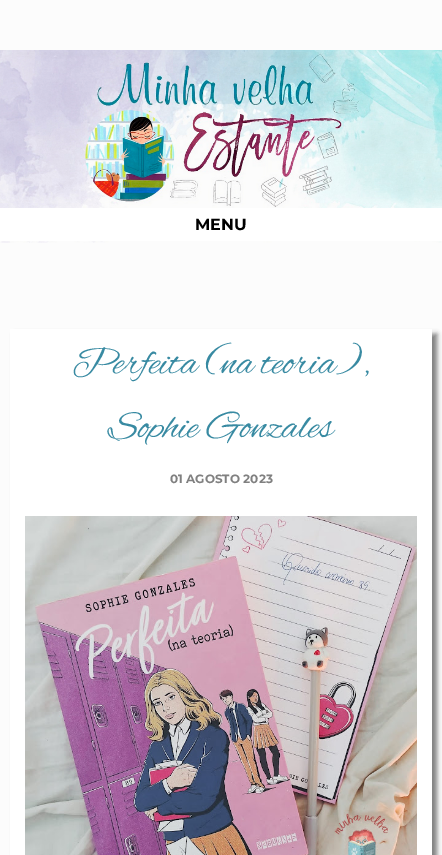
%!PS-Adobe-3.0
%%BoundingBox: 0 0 442 855
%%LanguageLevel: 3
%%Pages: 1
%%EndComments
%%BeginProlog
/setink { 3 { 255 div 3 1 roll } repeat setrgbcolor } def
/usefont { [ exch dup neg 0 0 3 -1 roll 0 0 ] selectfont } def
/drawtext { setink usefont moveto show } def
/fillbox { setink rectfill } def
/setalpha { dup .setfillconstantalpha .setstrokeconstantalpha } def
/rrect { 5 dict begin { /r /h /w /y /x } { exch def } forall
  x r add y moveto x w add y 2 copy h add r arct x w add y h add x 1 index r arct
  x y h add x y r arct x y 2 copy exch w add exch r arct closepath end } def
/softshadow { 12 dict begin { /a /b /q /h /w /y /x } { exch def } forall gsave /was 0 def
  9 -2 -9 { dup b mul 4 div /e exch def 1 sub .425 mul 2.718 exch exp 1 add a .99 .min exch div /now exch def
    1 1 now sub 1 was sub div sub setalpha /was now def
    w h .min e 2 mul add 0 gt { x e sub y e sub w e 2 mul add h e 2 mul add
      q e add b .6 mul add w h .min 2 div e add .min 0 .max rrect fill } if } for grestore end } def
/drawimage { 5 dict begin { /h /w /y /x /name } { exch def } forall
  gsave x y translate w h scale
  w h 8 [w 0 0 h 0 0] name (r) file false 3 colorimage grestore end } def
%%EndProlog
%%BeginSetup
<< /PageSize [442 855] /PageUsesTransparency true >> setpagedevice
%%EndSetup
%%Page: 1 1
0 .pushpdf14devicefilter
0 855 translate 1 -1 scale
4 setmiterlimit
0 0 442 855 252 252 252 fillbox
(assets/img1.rgb) 0 50 442 193 drawimage
0 208 442 33 255 255 255 fillbox
(MENU) 195 230 /Montserrat-Bold 16 0 0 0 drawtext
15 334 422 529 0 2.5 0.5 softshadow
10 329 422 526 255 255 255 fillbox
(Perfeita \(na teoria\),) 72 373 /AlexBrush-Regular 40 56 138 162 drawtext
(Sophie Gonzales) 108 437 /AlexBrush-Regular 40 56 138 162 drawtext
(01 AGOSTO 2023) 170 483 /Montserrat-Bold 12 128 128 128 drawtext
(assets/img2.rgb) 25 516 392 339 drawimage
.poppdf14devicefilter showpage
%%EOF
